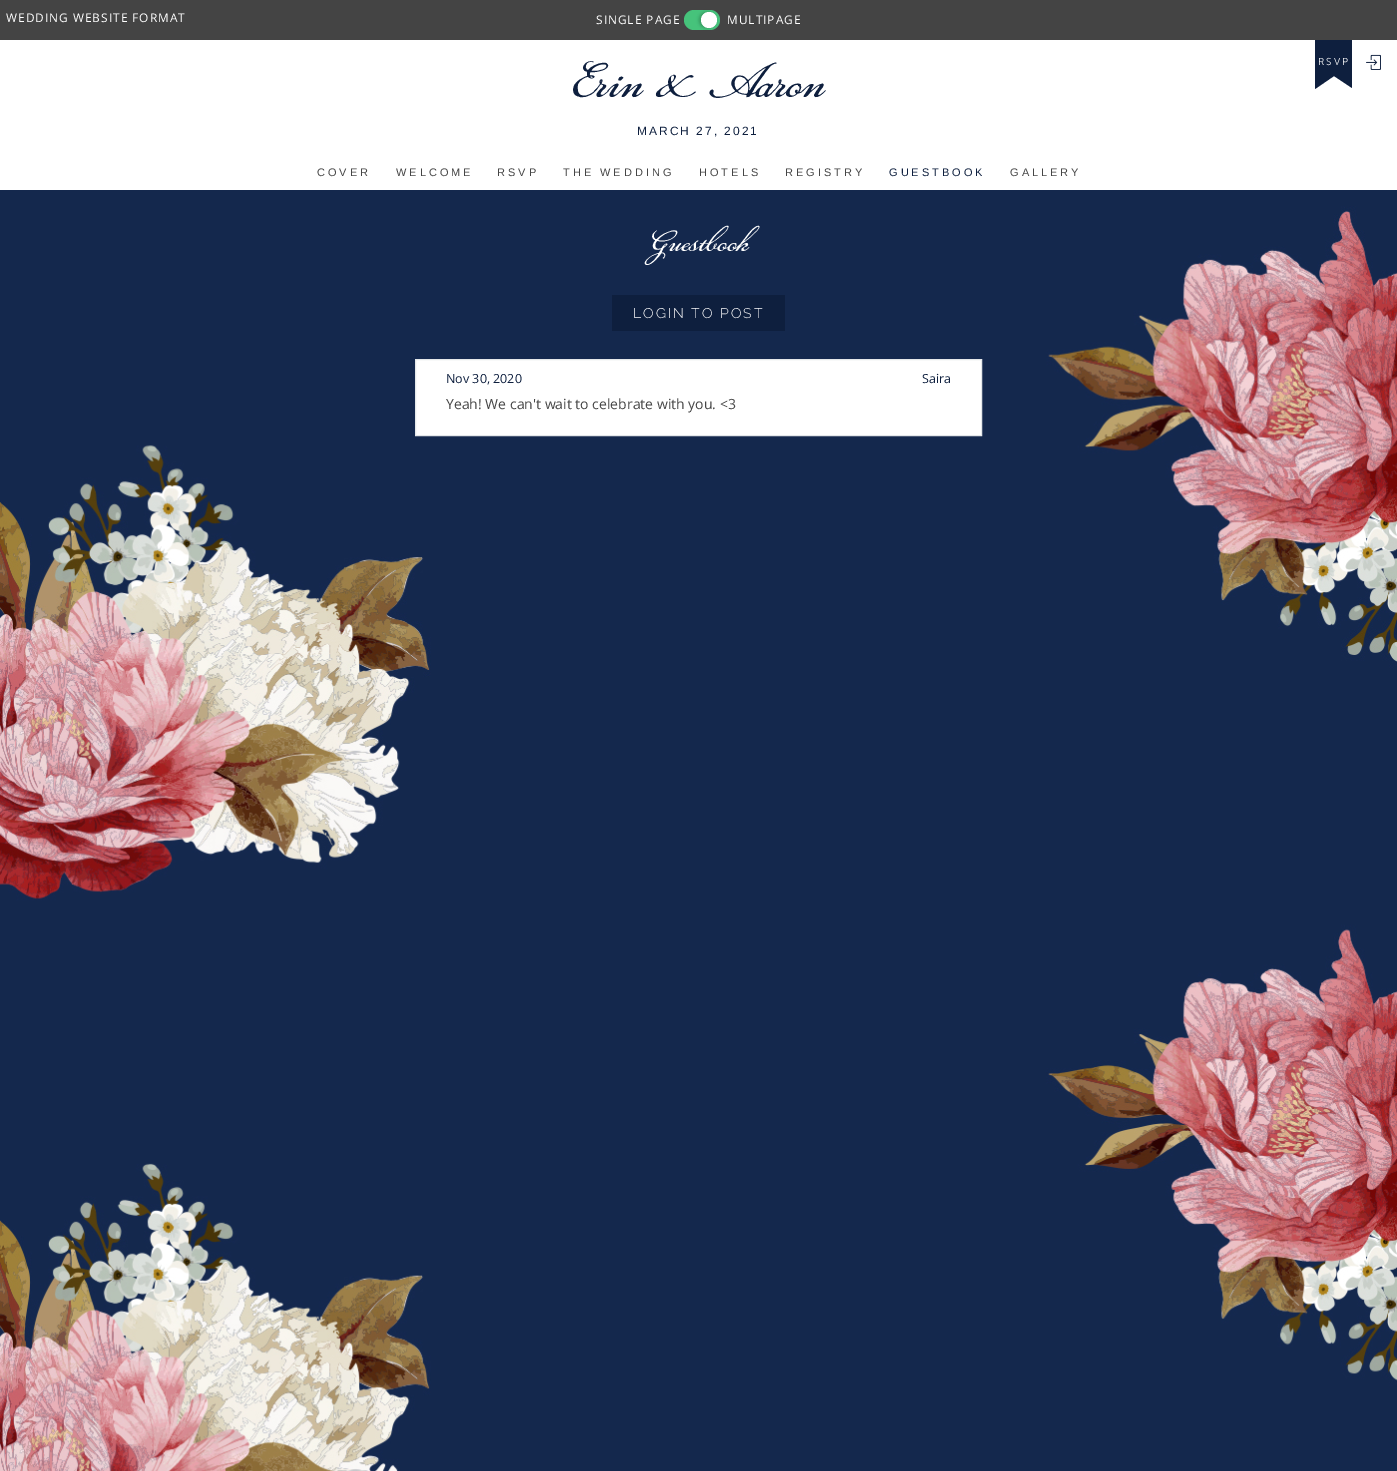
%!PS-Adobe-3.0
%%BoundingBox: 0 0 1397 1471
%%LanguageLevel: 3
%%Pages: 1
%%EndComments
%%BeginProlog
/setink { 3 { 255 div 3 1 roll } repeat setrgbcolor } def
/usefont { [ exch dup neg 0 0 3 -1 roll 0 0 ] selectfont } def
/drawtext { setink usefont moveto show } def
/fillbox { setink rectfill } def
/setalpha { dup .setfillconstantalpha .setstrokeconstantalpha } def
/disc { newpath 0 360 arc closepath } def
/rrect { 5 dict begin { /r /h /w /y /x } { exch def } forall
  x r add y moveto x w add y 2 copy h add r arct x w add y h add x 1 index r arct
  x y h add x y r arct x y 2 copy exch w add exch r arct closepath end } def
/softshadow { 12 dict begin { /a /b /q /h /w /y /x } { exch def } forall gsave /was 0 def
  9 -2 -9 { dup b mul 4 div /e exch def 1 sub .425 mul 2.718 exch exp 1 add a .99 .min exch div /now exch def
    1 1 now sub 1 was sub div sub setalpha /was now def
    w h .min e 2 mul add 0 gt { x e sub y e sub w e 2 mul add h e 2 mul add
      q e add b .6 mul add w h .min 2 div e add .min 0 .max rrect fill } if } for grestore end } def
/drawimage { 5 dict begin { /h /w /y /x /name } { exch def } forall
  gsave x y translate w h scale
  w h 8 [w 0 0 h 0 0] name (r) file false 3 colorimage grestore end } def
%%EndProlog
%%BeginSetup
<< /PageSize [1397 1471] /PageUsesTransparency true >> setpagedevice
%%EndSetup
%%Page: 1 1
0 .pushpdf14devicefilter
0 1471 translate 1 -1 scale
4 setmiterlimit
0 0 1397 1471 255 255 255 fillbox
14 31 62 setink
1315 30 moveto 1315 89 lineto 1334 76 lineto 1352 88 lineto 1352 30 lineto closepath fill
0 0 1397 40 68 68 68 fillbox
/OpenSans-Regular 11.9 usefont
255 255 255 setink
6 22 moveto 1 0 (WEDDING WEBSITE FORMAT) ashow
596 24 moveto 1 0 (SINGLE PAGE) ashow
70 195 123 setink
684 10 36 20 10 rrect fill
0 0 0 setink
699 12 16 16 8 1.5 0.2 softshadow
255 255 255 setink
709 20 8 disc fill
727 24 moveto 1 0 (MULTIPAGE) ashow
(Erin & Aaron) 571 97 /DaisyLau-Regular 50 14 31 62 drawtext
/LiberationSans-Regular 12 usefont
637 135 moveto 2 0 (MARCH 27, 2021) ashow
/LiberationSans-Regular 11 usefont
69 69 69 setink
317 176 moveto 3 0 (COVER) ashow
396 176 moveto 3 0 (WELCOME) ashow
497 176 moveto 3 0 (RSVP) ashow
563 176 moveto 3 0 (THE WEDDING) ashow
699 176 moveto 3 0 (HOTELS) ashow
785 176 moveto 3 0 (REGISTRY) ashow
14 31 62 setink
889 176 moveto 3 0 (GUESTBOOK) ashow
69 69 69 setink
1010 176 moveto 3 0 (GALLERY) ashow
/MuseoSans-Regular 10 usefont
255 255 255 setink
1318 65 moveto 2 0 (RSVP) ashow
(assets/img1.rgb) 1366 54 15 16 drawimage
(assets/img2.rgb) 0 190 1397 1281 drawimage
(Guestbook) 648 251 /DaisyLau-Regular 30 255 255 255 drawtext
612 295 173 36 14 31 62 fillbox
/Raleway-Light 14 usefont
255 255 255 setink
633 318 moveto 2 0 (LOGIN TO POST) ashow
415.5 359.5 moveto 981.5 359.5 lineto 981.5 435.5 lineto 415.5 435.5 lineto closepath gsave fill grestore
229 232 234 setink
stroke
(Nov 30, 2020) 446 383 /OpenSans-Regular 12.5 14 31 62 drawtext
(Yeah! We can't wait to celebrate with you. <3) 446 409 /OpenSans-Regular 14 69 69 69 drawtext
(Saira) 922 383 /OpenSans-Regular 12.5 14 31 62 drawtext
.poppdf14devicefilter showpage
%%EOF
